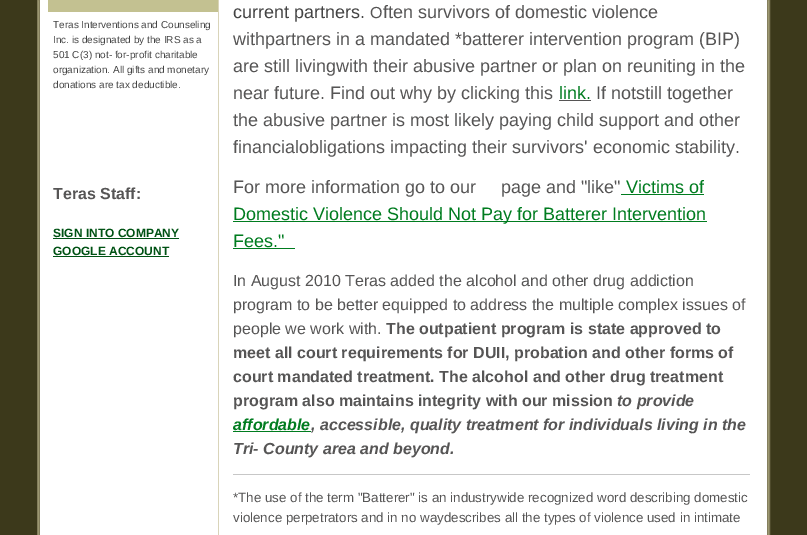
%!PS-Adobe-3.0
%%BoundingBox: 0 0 807 535
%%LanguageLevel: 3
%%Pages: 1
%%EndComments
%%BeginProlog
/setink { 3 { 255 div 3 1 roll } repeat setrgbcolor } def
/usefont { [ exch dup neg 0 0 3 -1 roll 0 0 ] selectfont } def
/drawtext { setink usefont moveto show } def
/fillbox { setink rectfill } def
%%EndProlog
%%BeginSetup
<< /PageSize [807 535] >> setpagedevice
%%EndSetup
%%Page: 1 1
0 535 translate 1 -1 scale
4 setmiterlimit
0 0 807 535 60 57 27 fillbox
166 162 121 setink
37.5 -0.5 moveto 769.5 -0.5 lineto 769.5 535.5 lineto 37.5 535.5 lineto closepath gsave fill grestore
132 126 93 setink
stroke
39.5 -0.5 728 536 rectstroke
40 0 727 535 255 255 255 fillbox
218 0 1 535 217 212 185 fillbox
48 0 170 12 195 193 145 fillbox
(Teras Interventions and Counseling) 53 28 /LiberationSans-Regular 10 68 68 68 drawtext
(Inc. is designated by the IRS as a) 53 43 /LiberationSans-Regular 10 68 68 68 drawtext
(501 C\(3\) not- for-profit charitable) 53 58 /LiberationSans-Regular 10 68 68 68 drawtext
(organization. All gifts and monetary) 53 73 /LiberationSans-Regular 10 68 68 68 drawtext
(donations are tax deductible.) 53 88 /LiberationSans-Regular 10 68 68 68 drawtext
(Teras Staff:) 53 199 /LiberationSans-Bold 16 86 85 85 drawtext
(SIGN INTO COMPANY) 53 237 /LiberationSans-Bold 12 0 82 20 drawtext
53 238 126 1 0 82 20 fillbox
(GOOGLE ACCOUNT) 53 255 /LiberationSans-Bold 12 0 82 20 drawtext
53 256 116 1 0 82 20 fillbox
(current partners.) 233 18 /LiberationSans-Regular 18 68 68 68 drawtext
(O) 370 18 /LiberationSans-Regular 16 86 85 85 drawtext
(ften survivors of domestic violence) 383 18 /LiberationSans-Regular 18 86 85 85 drawtext
(withpartners in a mandated *batterer intervention program \(BIP\)) 233 45 /LiberationSans-Regular 18 86 85 85 drawtext
(are still livingwith their abusive partner or plan on reuniting in the) 233 72 /LiberationSans-Regular 18 86 85 85 drawtext
(near future. Find out why by clicking this) 233 99 /LiberationSans-Regular 18 86 85 85 drawtext
(link.) 559 99 /LiberationSans-Regular 18 0 124 31 drawtext
559 100 32 1 86 85 85 fillbox
(If notstill together) 596 99 /LiberationSans-Regular 18 86 85 85 drawtext
(the abusive partner is most likely paying child support and other) 233 126 /LiberationSans-Regular 18 86 85 85 drawtext
(financialobligations impacting their survivors' economic stability.) 233 153 /LiberationSans-Regular 18 86 85 85 drawtext
(For more information go to our) 233 193 /LiberationSans-Regular 18 86 85 85 drawtext
(page and "like") 501 193 /LiberationSans-Regular 18 86 85 85 drawtext
(Victims of) 626 193 /LiberationSans-Regular 18 0 124 31 drawtext
621 194 83 1 0 124 31 fillbox
233 221 474 1 0 124 31 fillbox
(Domestic Violence Should Not Pay for Batterer Intervention) 233 220 /LiberationSans-Regular 18 0 124 31 drawtext
(Fees.") 233 247 /LiberationSans-Regular 18 0 124 31 drawtext
233 248 62 1 0 124 31 fillbox
(In August 2010 Teras added the alcohol and other drug addiction) 233 286 /LiberationSans-Regular 16 86 85 85 drawtext
(program to be better equipped to address the multiple complex issues of) 233 310 /LiberationSans-Regular 16 86 85 85 drawtext
(people we work with.) 233 334 /LiberationSans-Regular 16 86 85 85 drawtext
(The outpatient program is state approved to) 386 334 /LiberationSans-Bold 16 86 85 85 drawtext
(meet all court requirements for DUII, probation and other forms of) 233 358 /LiberationSans-Bold 16 86 85 85 drawtext
(court mandated treatment. The alcohol and other drug treatment) 233 382 /LiberationSans-Bold 16 86 85 85 drawtext
(program also maintains integrity with our mission) 233 406 /LiberationSans-Bold 16 86 85 85 drawtext
(to provide) 617 406 /LiberationSans-BoldItalic 16 86 85 85 drawtext
(affordable) 233 430 /LiberationSans-BoldItalic 16 0 124 31 drawtext
233 431 78 1 0 124 31 fillbox
(, accessible, quality treatment for individuals living in the) 311 430 /LiberationSans-BoldItalic 16 86 85 85 drawtext
(Tri- County area and beyond.) 233 454 /LiberationSans-BoldItalic 16 86 85 85 drawtext
233 474 517 1 199 199 199 fillbox
(*The use of the term "Batterer" is an industrywide recognized word describing domestic) 233 502 /LiberationSans-Regular 13.35 86 85 85 drawtext
(violence perpetrators and in no waydescribes all the types of violence used in intimate) 233 522 /LiberationSans-Regular 13.35 86 85 85 drawtext
showpage
%%EOF
